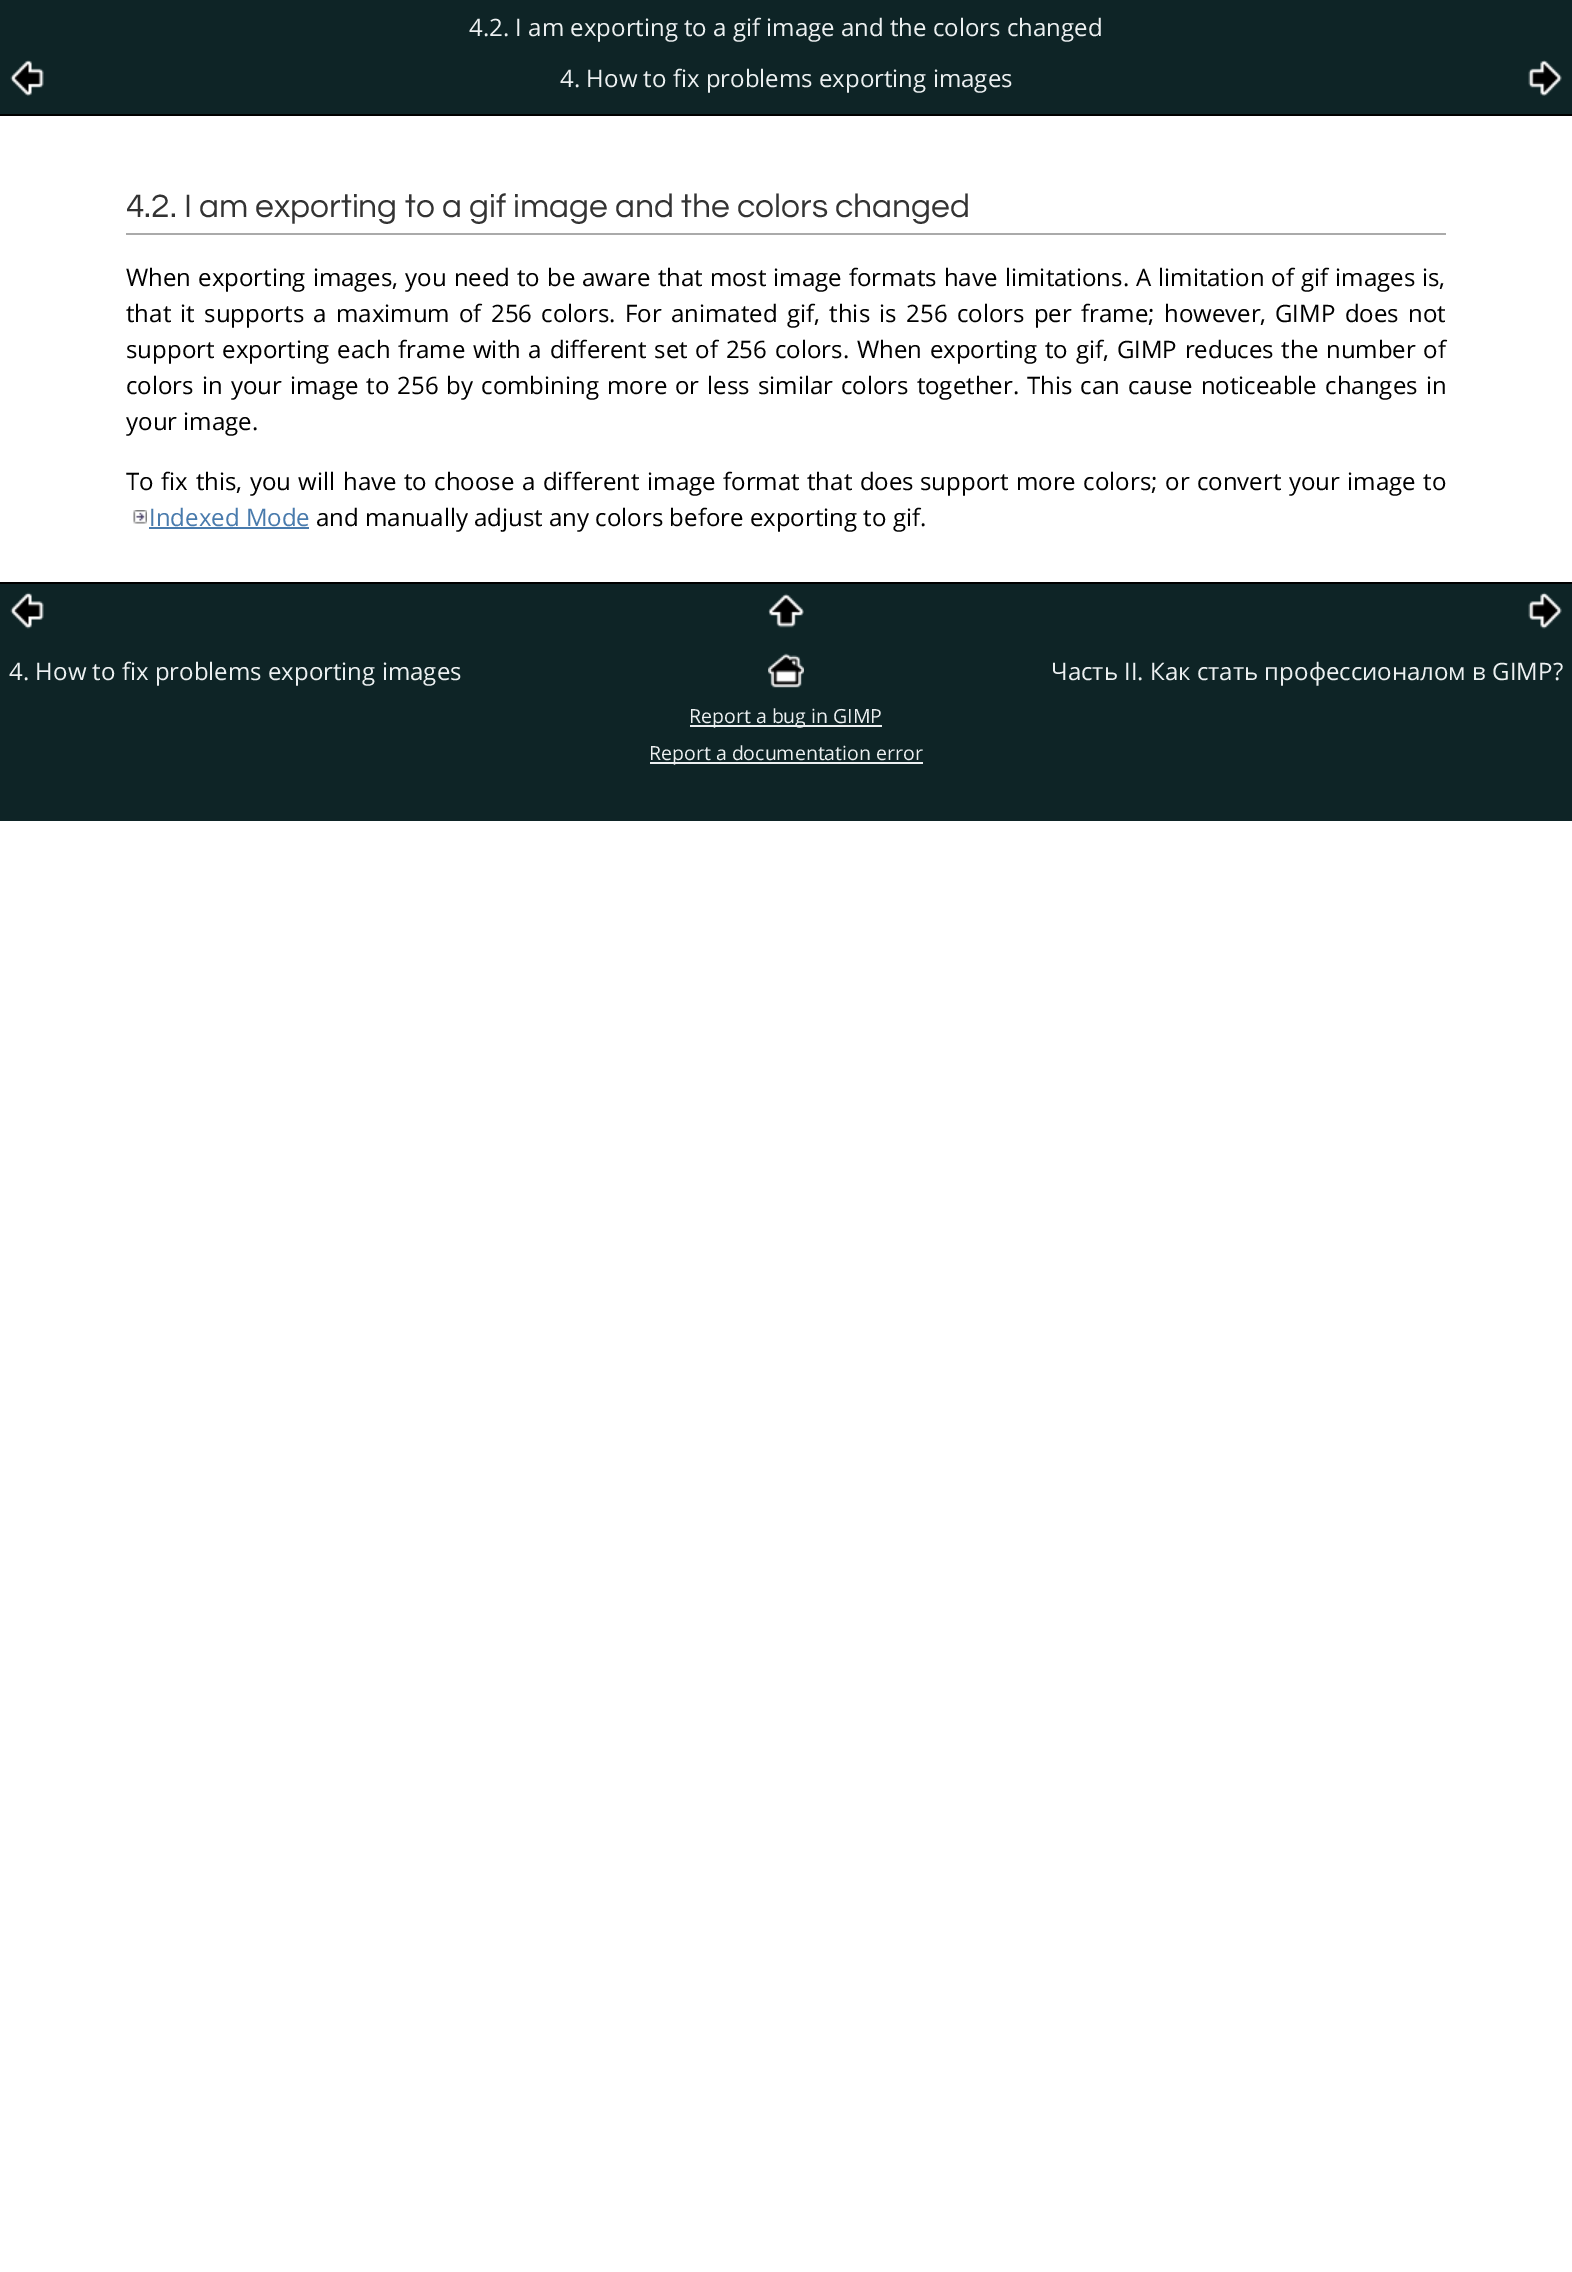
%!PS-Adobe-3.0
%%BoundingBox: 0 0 1572 2272
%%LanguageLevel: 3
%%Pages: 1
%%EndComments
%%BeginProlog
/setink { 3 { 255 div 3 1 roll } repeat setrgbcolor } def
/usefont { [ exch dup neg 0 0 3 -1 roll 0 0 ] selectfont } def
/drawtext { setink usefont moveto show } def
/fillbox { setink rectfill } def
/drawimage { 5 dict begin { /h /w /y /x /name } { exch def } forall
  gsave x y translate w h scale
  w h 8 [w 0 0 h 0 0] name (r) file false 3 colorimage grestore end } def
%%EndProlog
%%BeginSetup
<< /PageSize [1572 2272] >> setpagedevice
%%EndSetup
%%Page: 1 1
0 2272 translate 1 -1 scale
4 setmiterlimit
0 0 1572 2272 255 255 255 fillbox
0 0 1572 114 14 36 38 fillbox
0 114 1572 2 0 0 0 fillbox
(4.2. I am exporting to a gif image and the colors changed) 469 36 /OpenSans-Regular 24 236 240 241 drawtext
(assets/img1.rgb) 10 60 34 36 drawimage
(4. How to fix problems exporting images) 560 87 /OpenSans-Regular 24 236 240 241 drawtext
(assets/img2.rgb) 1528 60 34 36 drawimage
126 233 1320 2 170 170 170 fillbox
(4.2. I am exporting to a gif image and the colors changed) 126 217 /Questrial-Regular 33.6 51 51 51 drawtext
/OpenSans-Regular 24 usefont
0 0 0 setink
126 286 moveto 0.75 0 32 (When exporting images, you need to be aware that most image formats have) widthshow
1005 286 moveto 0.75 0 32 (limitations. A limitation of gif images is,) widthshow
126 322 moveto 3.1 0 32 (that it supports a maximum) widthshow
459 322 moveto 3.1 0 32 (of 256 colors. For animated gif, this is 256 colors per frame; however,) widthshow
1275 322 moveto 3.1 0 32 (GIMP does not) widthshow
126 358 moveto 1.5 0 32 (support exporting each frame with a different set of 256) widthshow
775 358 moveto 1.5 0 32 (colors. When exporting to gif, GIMP reduces the number of) widthshow
126 394 moveto 1.75 0 32 (colors in your) widthshow
290 394 moveto 1.75 0 32 (image to 256 by combining more or less similar colors together. This can) widthshow
1128 394 moveto 2 0 32 (cause noticeable changes in) widthshow
(your image.) 126 430 /OpenSans-Regular 24 0 0 0 drawtext
126 490 moveto 1.25 0 32 (To fix this, you will have to choose a different image format that does) widthshow
920 490 moveto 1.25 0 32 (support more colors; or convert your image to) widthshow
(assets/img3.rgb) 133 510 14 14 drawimage
(Indexed Mode) 149 526 /OpenSans-Regular 24 73 123 173 drawtext
149 527 160 2 73 123 173 fillbox
(and manually adjust any colors before exporting to gif.) 316 526 /OpenSans-Regular 24 0 0 0 drawtext
0 584 1572 237 14 36 38 fillbox
0 582 1572 2 0 0 0 fillbox
(assets/img4.rgb) 10 592 34 37 drawimage
(assets/img5.rgb) 768 593 36 35 drawimage
(assets/img6.rgb) 1528 592 34 37 drawimage
(4. How to fix problems exporting images) 9 680 /OpenSans-Regular 24 236 240 241 drawtext
(assets/img7.rgb) 768 653 36 35 drawimage
(Часть II. Как стать профессионалом в GIMP?) 1051 680 /OpenSans-Regular 24 236 240 241 drawtext
690 725 192 2 236 240 241 fillbox
(Report a bug in GIMP) 689 723 /OpenSans-Regular 19.5 236 240 241 drawtext
650 762 273 2 236 240 241 fillbox
(Report a documentation error) 649 760 /OpenSans-Regular 19.5 236 240 241 drawtext
showpage
%%EOF
